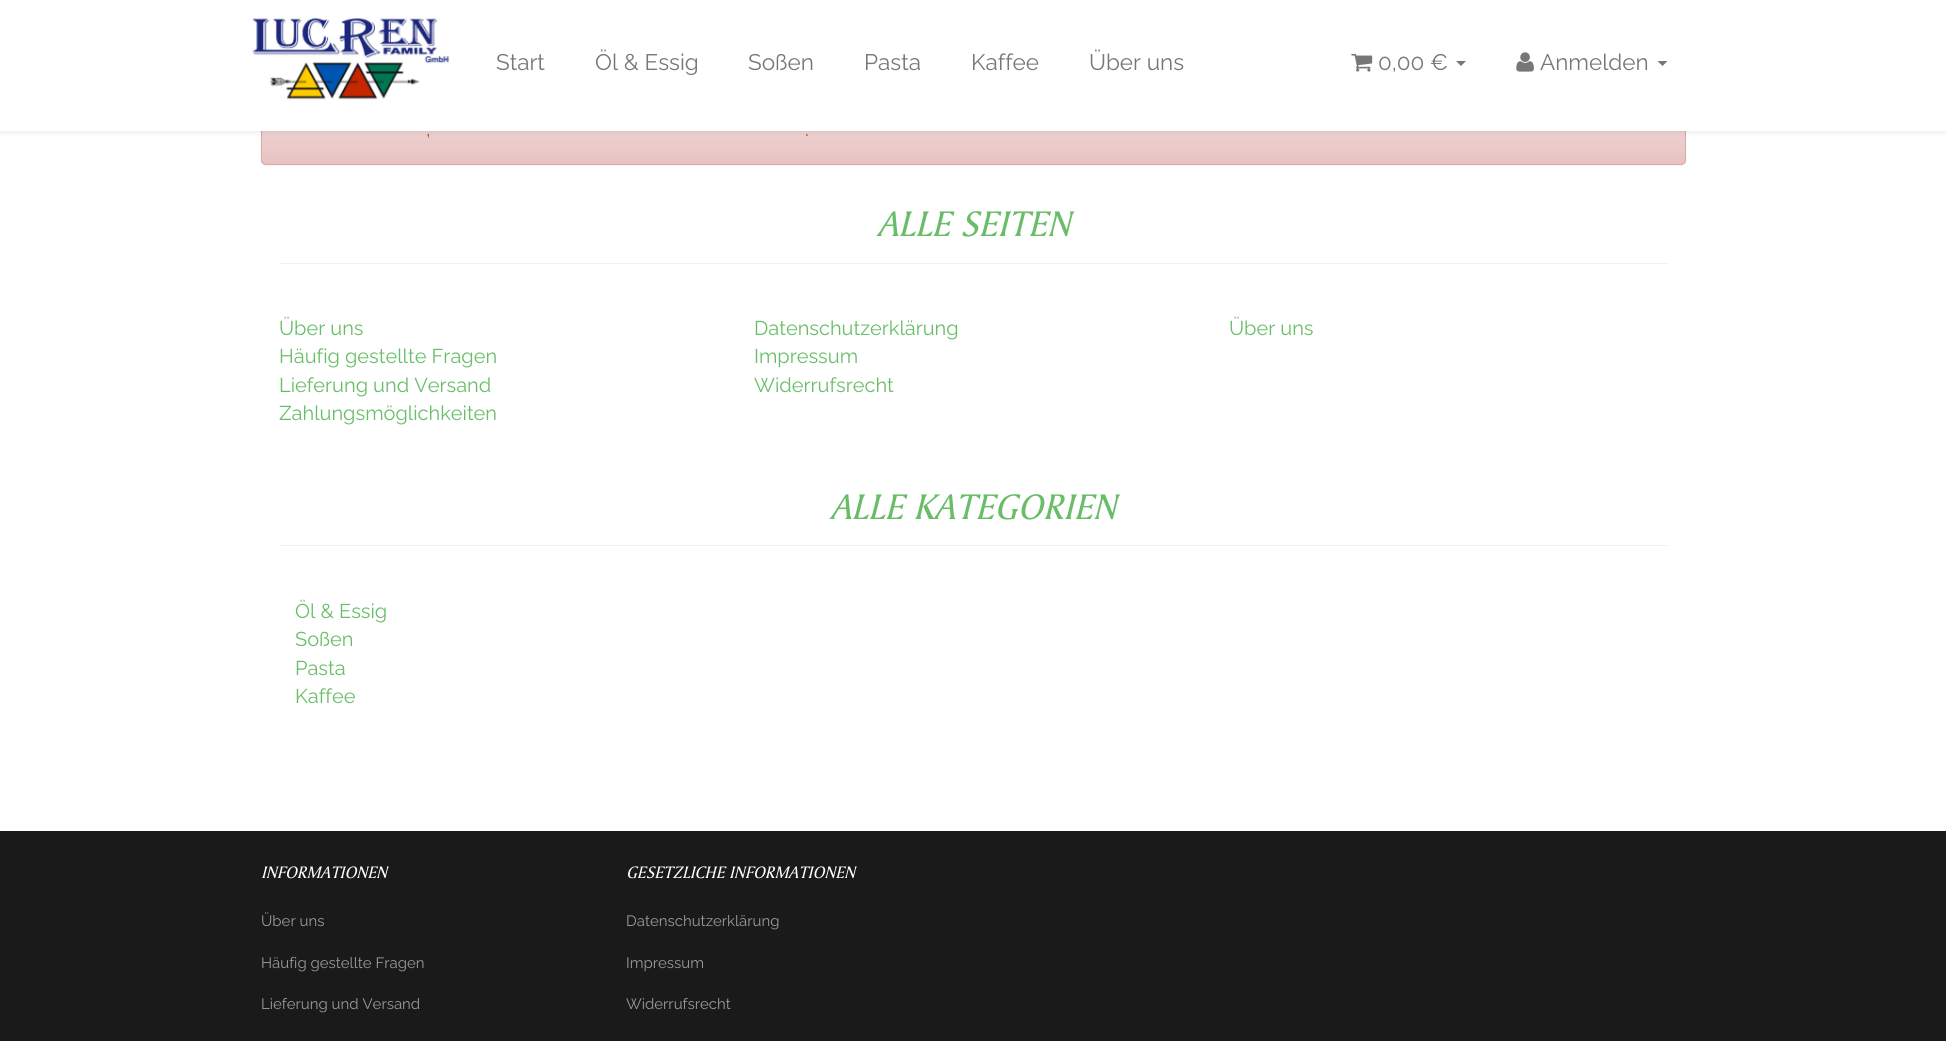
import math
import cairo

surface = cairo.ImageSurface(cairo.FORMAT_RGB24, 1946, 1041)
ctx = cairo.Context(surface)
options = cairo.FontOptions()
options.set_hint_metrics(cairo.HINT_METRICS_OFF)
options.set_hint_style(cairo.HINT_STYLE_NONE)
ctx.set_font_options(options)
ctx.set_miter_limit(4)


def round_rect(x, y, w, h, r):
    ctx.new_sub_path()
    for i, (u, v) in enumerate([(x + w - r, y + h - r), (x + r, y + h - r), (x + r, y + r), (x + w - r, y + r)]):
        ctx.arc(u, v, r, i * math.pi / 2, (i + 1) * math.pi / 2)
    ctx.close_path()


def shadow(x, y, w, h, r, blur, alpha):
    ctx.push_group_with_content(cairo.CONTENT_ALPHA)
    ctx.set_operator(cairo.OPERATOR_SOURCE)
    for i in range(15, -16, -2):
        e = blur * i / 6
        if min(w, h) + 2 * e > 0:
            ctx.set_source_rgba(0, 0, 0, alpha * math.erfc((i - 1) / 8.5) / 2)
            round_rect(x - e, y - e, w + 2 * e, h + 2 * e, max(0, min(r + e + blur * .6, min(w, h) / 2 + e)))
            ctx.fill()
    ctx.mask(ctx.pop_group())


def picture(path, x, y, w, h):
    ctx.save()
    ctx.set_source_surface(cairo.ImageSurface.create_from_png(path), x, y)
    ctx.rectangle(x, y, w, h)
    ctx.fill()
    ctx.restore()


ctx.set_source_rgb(1, 1, 1)
ctx.paint()
ctx.set_source_rgb(0, 0, 0)
shadow(261, 98, 1425, 68, 5, 1, 0.05)
ctx.save()
round_rect(261, 96, 1425, 69, 5)
ctx.clip()
gradient = cairo.LinearGradient(974, 97, 974, 164)
gradient.add_color_stop_rgba(0, 0.949, 0.871, 0.871, 1)
gradient.add_color_stop_rgba(1, 0.906, 0.765, 0.765, 1)
ctx.set_source(gradient)
ctx.rectangle(261, 131, 1425, 33)
ctx.fill()
ctx.restore()
round_rect(261.5, 96.5, 1424, 68, 4.5)
ctx.set_source_rgb(0.863, 0.655, 0.655)
ctx.set_line_width(1)
ctx.stroke()
ctx.set_source_rgb(0, 0, 0)
shadow(0, 1, 1946, 132, 0, 3, 0.07)
ctx.set_source_rgb(1, 1, 1)
ctx.rectangle(0, 0, 1946, 131)
ctx.fill()
picture("img1.png", 252, 17, 198, 83)
ctx.select_font_face("Raleway")
ctx.set_font_size(22.5)
ctx.set_source_rgb(0.467, 0.467, 0.467)
ctx.move_to(496, 70)
ctx.show_text("Start")
ctx.move_to(595, 70)
ctx.show_text("Öl & Essig")
ctx.move_to(748, 70)
ctx.show_text("Soßen")
ctx.move_to(864, 70)
ctx.show_text("Pasta")
ctx.move_to(971, 70)
ctx.show_text("Kaffee")
ctx.move_to(1089, 70)
ctx.show_text("Über uns")
picture("img2.png", 1351, 53, 22, 19)
ctx.move_to(1378, 70)
ctx.show_text("0,00 €")
ctx.new_path()
ctx.move_to(1456, 61)
ctx.line_to(1466, 61)
ctx.line_to(1461, 66)
ctx.close_path()
ctx.fill()
picture("img3.png", 1516, 52, 18, 20)
ctx.move_to(1540, 70)
ctx.show_text("Anmelden")
ctx.new_path()
ctx.move_to(1657.5, 61)
ctx.line_to(1667.5, 61)
ctx.line_to(1662.5, 66)
ctx.close_path()
ctx.fill()
ctx.set_font_size(20)
ctx.set_source_rgb(0.663, 0.267, 0.259)
ctx.move_to(426, 136)
ctx.show_text(",")
ctx.move_to(805, 136)
ctx.show_text(".")
ctx.set_source_rgb(0.945, 0.945, 0.945)
ctx.rectangle(280, 263, 1388, 1)
ctx.fill()
ctx.select_font_face("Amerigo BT", cairo.FONT_SLANT_ITALIC)
ctx.set_font_size(37.5)
ctx.set_source_rgb(0.412, 0.741, 0.412)
ctx.move_to(877, 236)
ctx.show_text("ALLE SEITEN")
ctx.select_font_face("Raleway")
ctx.set_font_size(20)
ctx.move_to(279, 335)
ctx.show_text("Über uns")
ctx.move_to(279, 363)
ctx.show_text("Häufig gestellte Fragen")
ctx.move_to(279, 392)
ctx.show_text("Lieferung und Versand")
ctx.move_to(279, 420)
ctx.show_text("Zahlungsmöglichkeiten")
ctx.move_to(754, 335)
ctx.show_text("Datenschutzerklärung")
ctx.move_to(754, 363)
ctx.show_text("Impressum")
ctx.move_to(754, 392)
ctx.show_text("Widerrufsrecht")
ctx.move_to(1229, 335)
ctx.show_text("Über uns")
ctx.set_source_rgb(0.945, 0.945, 0.945)
ctx.rectangle(280, 545, 1388, 1)
ctx.fill()
ctx.select_font_face("Amerigo BT", cairo.FONT_SLANT_ITALIC)
ctx.set_font_size(37.5)
ctx.set_source_rgb(0.412, 0.741, 0.412)
ctx.move_to(830, 519)
ctx.show_text("ALLE KATEGORIEN")
ctx.select_font_face("Raleway")
ctx.set_font_size(20)
ctx.move_to(295, 618)
ctx.show_text("Öl & Essig")
ctx.move_to(295, 646)
ctx.show_text("Soßen")
ctx.move_to(295, 675)
ctx.show_text("Pasta")
ctx.move_to(295, 703)
ctx.show_text("Kaffee")
ctx.set_source_rgb(0.102, 0.102, 0.102)
ctx.rectangle(0, 831, 1946, 210)
ctx.fill()
ctx.select_font_face("Amerigo BT", cairo.FONT_SLANT_ITALIC)
ctx.set_font_size(17.5)
ctx.set_source_rgb(1, 1, 1)
ctx.move_to(261, 878)
ctx.show_text("INFORMATIONEN")
ctx.select_font_face("Raleway")
ctx.set_font_size(15)
ctx.set_source_rgb(0.604, 0.604, 0.604)
ctx.move_to(261, 926)
ctx.show_text("Über uns")
ctx.move_to(261, 968)
ctx.show_text("Häufig gestellte Fragen")
ctx.move_to(261, 1009)
ctx.show_text("Lieferung und Versand")
ctx.select_font_face("Amerigo BT", cairo.FONT_SLANT_ITALIC)
ctx.set_font_size(17.5)
ctx.set_source_rgb(1, 1, 1)
ctx.move_to(626, 878)
ctx.show_text("GESETZLICHE INFORMATIONEN")
ctx.select_font_face("Raleway")
ctx.set_font_size(15)
ctx.set_source_rgb(0.604, 0.604, 0.604)
ctx.move_to(626, 926)
ctx.show_text("Datenschutzerklärung")
ctx.move_to(626, 968)
ctx.show_text("Impressum")
ctx.move_to(626, 1009)
ctx.show_text("Widerrufsrecht")
surface.write_to_png("page.png")
